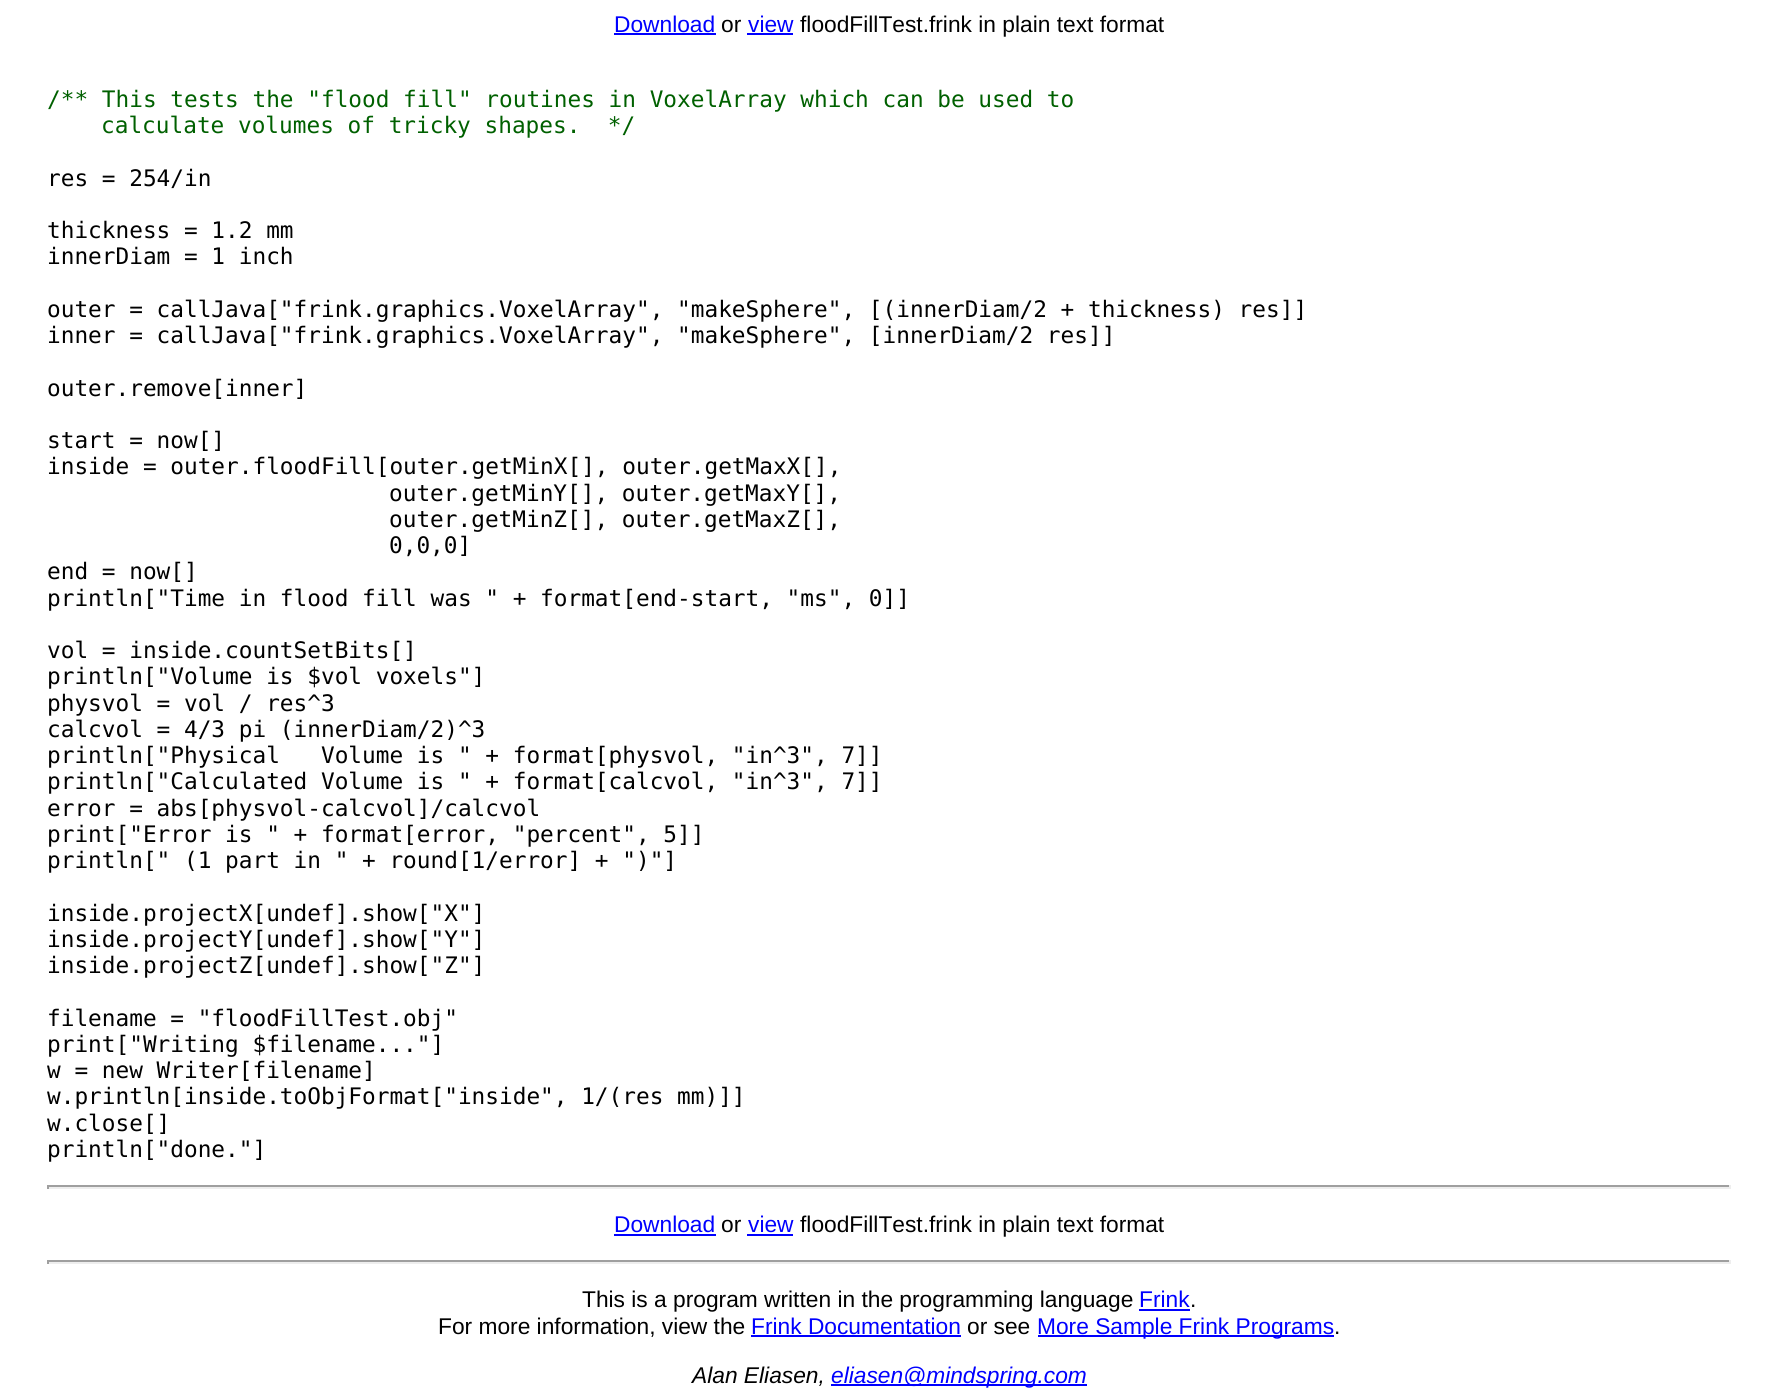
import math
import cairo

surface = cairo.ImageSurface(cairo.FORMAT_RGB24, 1777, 1400)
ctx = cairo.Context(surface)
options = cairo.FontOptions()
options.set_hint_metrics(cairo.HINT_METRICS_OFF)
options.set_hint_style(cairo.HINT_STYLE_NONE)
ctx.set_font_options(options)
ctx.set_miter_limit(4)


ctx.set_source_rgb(1, 1, 1)
ctx.paint()
ctx.select_font_face("Liberation Sans")
ctx.set_font_size(22.75)
ctx.set_source_rgb(0, 0, 1)
ctx.move_to(614, 32)
ctx.show_text("Download")
ctx.rectangle(614, 33, 102, 2)
ctx.fill()
ctx.set_source_rgb(0, 0, 0)
ctx.move_to(721, 32)
ctx.show_text("or")
ctx.set_source_rgb(0, 0, 1)
ctx.move_to(748, 32)
ctx.show_text("view")
ctx.rectangle(747, 33, 46, 2)
ctx.fill()
ctx.set_source_rgb(0, 0, 0)
ctx.move_to(800, 32)
ctx.show_text("floodFillTest.frink in plain text format")
ctx.select_font_face("DejaVu Sans Mono")
ctx.set_source_rgb(0, 0.376, 0)
ctx.move_to(47, 107)
ctx.show_text("/** This tests the \"flood fill\" routines in VoxelArray which can be used to")
ctx.move_to(101, 133)
ctx.show_text("calculate volumes of tricky shapes.  */")
ctx.set_source_rgb(0, 0, 0)
ctx.move_to(47, 186)
ctx.show_text("res = 254/in")
ctx.move_to(47, 238)
ctx.show_text("thickness = 1.2 mm")
ctx.move_to(47, 264)
ctx.show_text("innerDiam = 1 inch")
ctx.move_to(47, 317)
ctx.show_text("outer = callJava[\"frink.graphics.VoxelArray\", \"makeSphere\", [(innerDiam/2 + thickness) res]]")
ctx.move_to(47, 343)
ctx.show_text("inner = callJava[\"frink.graphics.VoxelArray\", \"makeSphere\", [innerDiam/2 res]]")
ctx.move_to(47, 396)
ctx.show_text("outer.remove[inner]")
ctx.move_to(47, 448)
ctx.show_text("start = now[]")
ctx.move_to(47, 474)
ctx.show_text("inside = outer.floodFill[outer.getMinX[], outer.getMaxX[],")
ctx.move_to(389, 501)
ctx.show_text("outer.getMinY[], outer.getMaxY[],")
ctx.move_to(389, 527)
ctx.show_text("outer.getMinZ[], outer.getMaxZ[],")
ctx.move_to(389, 553)
ctx.show_text("0,0,0]")
ctx.move_to(47, 579)
ctx.show_text("end = now[]")
ctx.move_to(47, 606)
ctx.show_text("println[\"Time in flood fill was \" + format[end-start, \"ms\", 0]]")
ctx.move_to(47, 658)
ctx.show_text("vol = inside.countSetBits[]")
ctx.move_to(47, 684)
ctx.show_text("println[\"Volume is $vol voxels\"]")
ctx.move_to(47, 711)
ctx.show_text("physvol = vol / res^3")
ctx.move_to(47, 737)
ctx.show_text("calcvol = 4/3 pi (innerDiam/2)^3")
ctx.move_to(47, 763)
ctx.show_text("println[\"Physical   Volume is \" + format[physvol, \"in^3\", 7]]")
ctx.move_to(47, 789)
ctx.show_text("println[\"Calculated Volume is \" + format[calcvol, \"in^3\", 7]]")
ctx.move_to(47, 816)
ctx.show_text("error = abs[physvol-calcvol]/calcvol")
ctx.move_to(47, 842)
ctx.show_text("print[\"Error is \" + format[error, \"percent\", 5]]")
ctx.move_to(47, 868)
ctx.show_text("println[\" (1 part in \" + round[1/error] + \")\"]")
ctx.move_to(47, 921)
ctx.show_text("inside.projectX[undef].show[\"X\"]")
ctx.move_to(47, 947)
ctx.show_text("inside.projectY[undef].show[\"Y\"]")
ctx.move_to(47, 973)
ctx.show_text("inside.projectZ[undef].show[\"Z\"]")
ctx.move_to(47, 1026)
ctx.show_text("filename = \"floodFillTest.obj\"")
ctx.move_to(47, 1052)
ctx.show_text("print[\"Writing $filename...\"]")
ctx.move_to(47, 1078)
ctx.show_text("w = new Writer[filename]")
ctx.move_to(47, 1104)
ctx.show_text("w.println[inside.toObjFormat[\"inside\", 1/(res mm)]]")
ctx.move_to(47, 1131)
ctx.show_text("w.close[]")
ctx.move_to(47, 1157)
ctx.show_text("println[\"done.\"]")
ctx.set_source_rgb(0.624, 0.624, 0.624)
ctx.rectangle(47, 1185, 1684, 2)
ctx.fill()
ctx.set_source_rgb(0.933, 0.933, 0.933)
ctx.rectangle(1729, 1185, 2, 4)
ctx.fill()
ctx.rectangle(47, 1187, 1684, 2)
ctx.fill()
ctx.set_source_rgb(0.624, 0.624, 0.624)
ctx.rectangle(47, 1185, 2, 4)
ctx.fill()
ctx.select_font_face("Liberation Sans")
ctx.set_source_rgb(0, 0, 1)
ctx.move_to(614, 1232)
ctx.show_text("Download")
ctx.rectangle(614, 1234, 102, 2)
ctx.fill()
ctx.set_source_rgb(0, 0, 0)
ctx.move_to(721, 1232)
ctx.show_text("or")
ctx.set_source_rgb(0, 0, 1)
ctx.move_to(748, 1232)
ctx.show_text("view")
ctx.rectangle(747, 1234, 46, 2)
ctx.fill()
ctx.set_source_rgb(0, 0, 0)
ctx.move_to(800, 1232)
ctx.show_text("floodFillTest.frink in plain text format")
ctx.set_source_rgb(0.624, 0.624, 0.624)
ctx.rectangle(47, 1260, 1684, 2)
ctx.fill()
ctx.set_source_rgb(0.933, 0.933, 0.933)
ctx.rectangle(1729, 1260, 2, 4)
ctx.fill()
ctx.rectangle(47, 1262, 1684, 2)
ctx.fill()
ctx.set_source_rgb(0.624, 0.624, 0.624)
ctx.rectangle(47, 1260, 2, 4)
ctx.fill()
ctx.set_source_rgb(0, 0, 0)
ctx.move_to(582, 1307)
ctx.show_text("This is a program written in the programming language")
ctx.set_source_rgb(0, 0, 1)
ctx.move_to(1139, 1307)
ctx.show_text("Frink")
ctx.rectangle(1139, 1309, 51, 2)
ctx.fill()
ctx.set_source_rgb(0, 0, 0)
ctx.move_to(1190, 1307)
ctx.show_text(".")
ctx.move_to(438, 1334)
ctx.show_text("For more information, view the")
ctx.set_source_rgb(0, 0, 1)
ctx.move_to(751, 1334)
ctx.show_text("Frink Documentation")
ctx.rectangle(751, 1335, 210, 2)
ctx.fill()
ctx.set_source_rgb(0, 0, 0)
ctx.move_to(967, 1334)
ctx.show_text("or see")
ctx.set_source_rgb(0, 0, 1)
ctx.rectangle(1038, 1335, 296, 2)
ctx.fill()
ctx.move_to(1037, 1334)
ctx.show_text("More Sample Frink Programs")
ctx.set_source_rgb(0, 0, 0)
ctx.move_to(1334, 1334)
ctx.show_text(".")
ctx.select_font_face("Liberation Sans", cairo.FONT_SLANT_ITALIC)
ctx.move_to(692, 1383)
ctx.show_text("Alan Eliasen,")
ctx.set_source_rgb(0, 0, 1)
ctx.rectangle(831, 1384, 256, 2)
ctx.fill()
ctx.move_to(831, 1383)
ctx.show_text("eliasen@mindspring.com")
surface.write_to_png("page.png")
